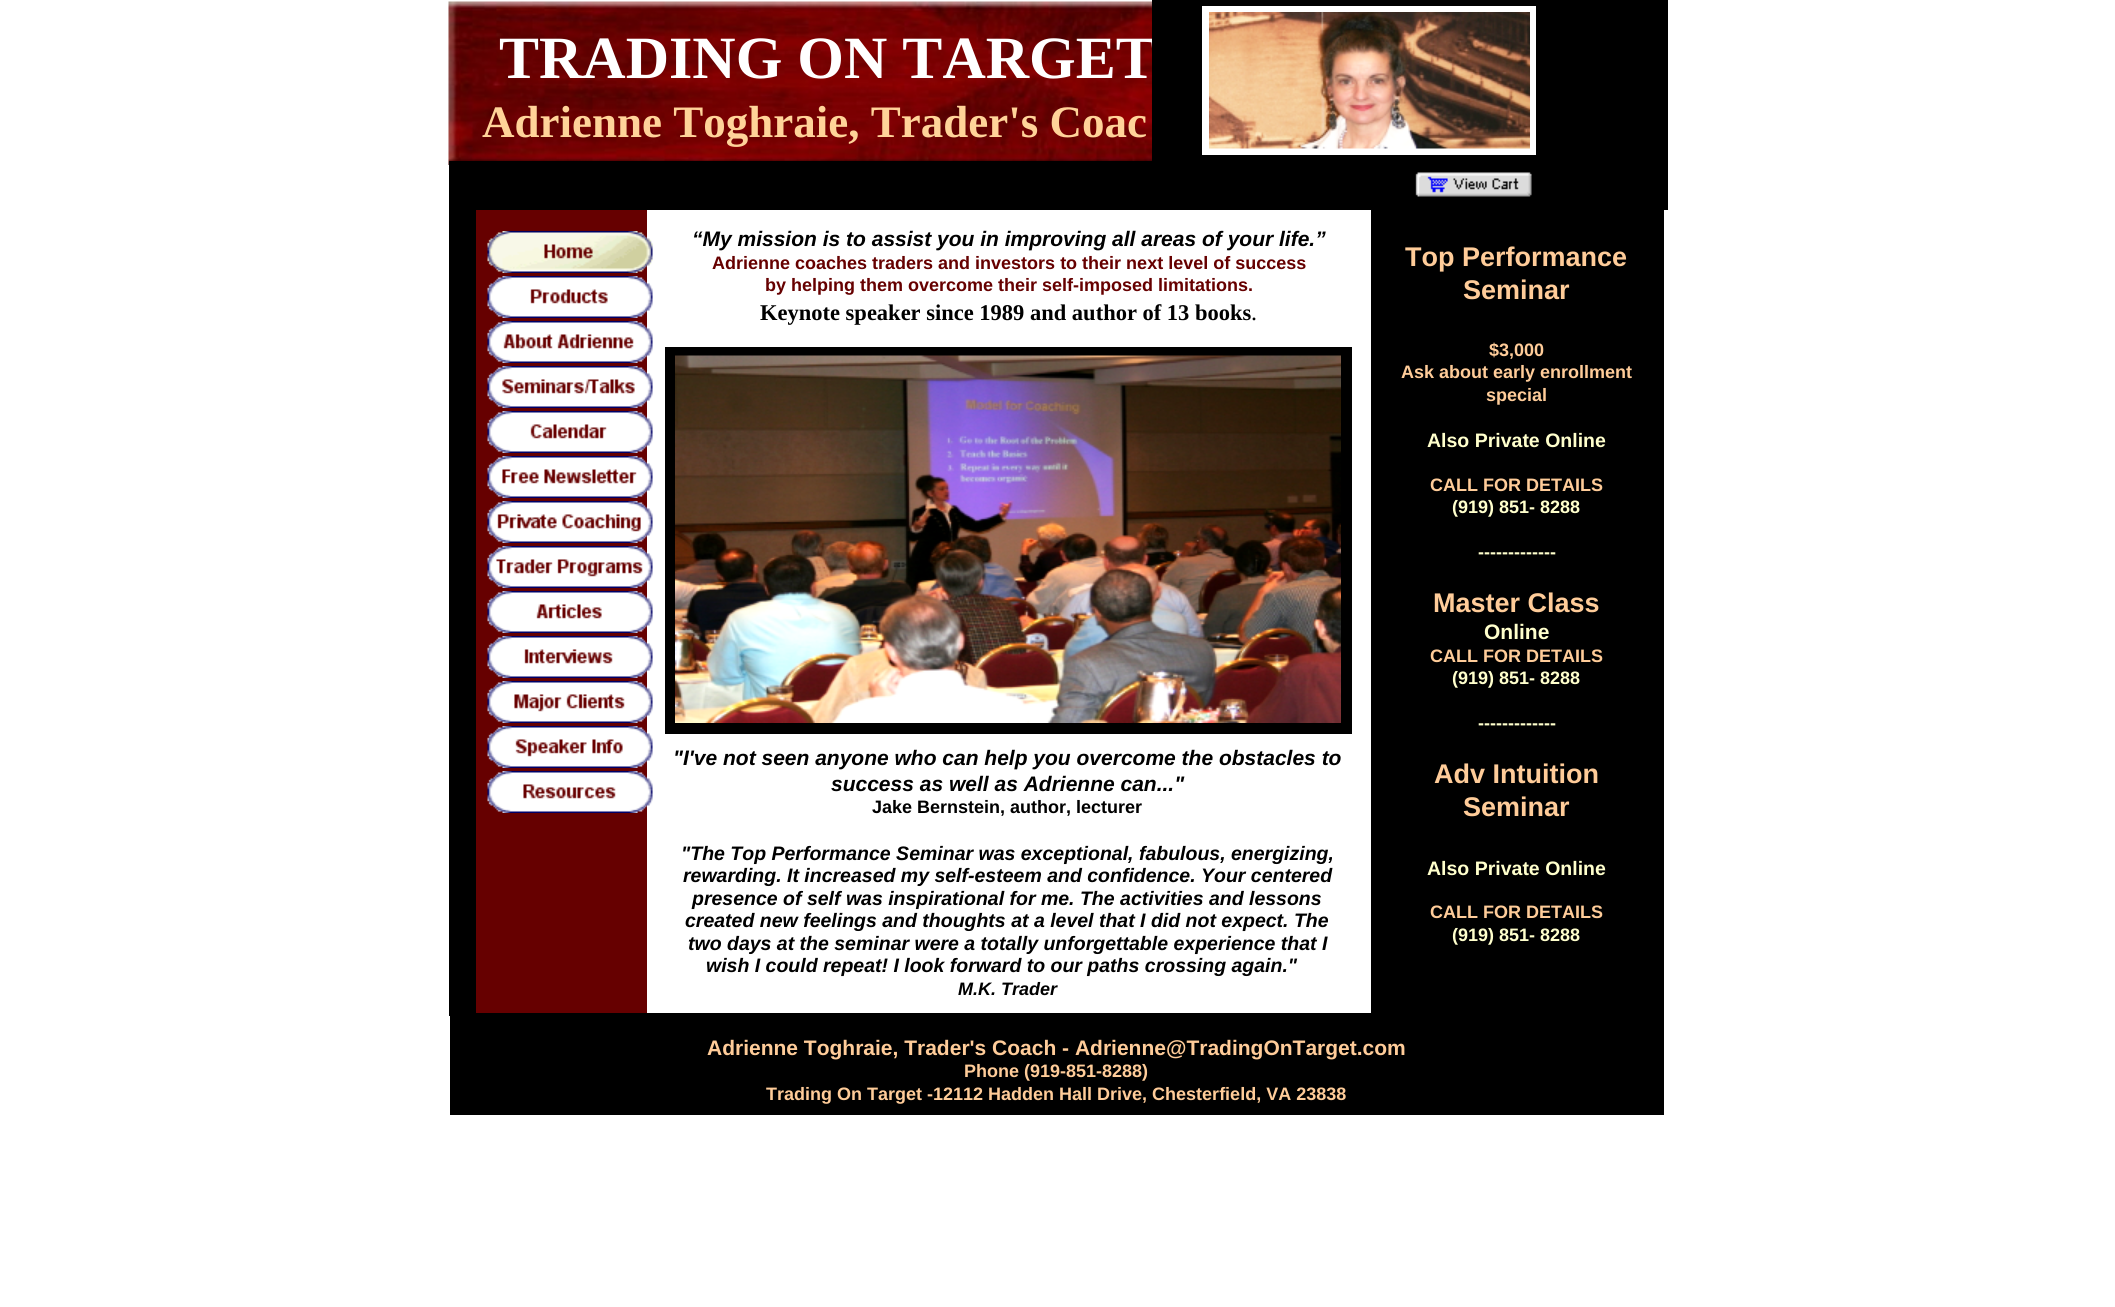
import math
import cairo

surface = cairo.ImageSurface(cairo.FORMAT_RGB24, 2115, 1307)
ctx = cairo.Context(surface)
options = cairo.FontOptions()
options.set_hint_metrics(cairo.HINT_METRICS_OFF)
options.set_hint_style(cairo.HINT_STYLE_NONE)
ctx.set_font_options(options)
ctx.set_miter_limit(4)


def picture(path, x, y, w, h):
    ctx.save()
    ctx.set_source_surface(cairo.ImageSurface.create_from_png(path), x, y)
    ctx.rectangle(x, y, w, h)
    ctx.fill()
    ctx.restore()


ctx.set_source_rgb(1, 1, 1)
ctx.paint()
picture("img1.png", 448, 1, 704, 164)
ctx.select_font_face("Liberation Serif", cairo.FONT_SLANT_NORMAL, cairo.FONT_WEIGHT_BOLD)
ctx.set_font_size(60)
ctx.set_source_rgb(1, 1, 1)
ctx.move_to(499, 78)
ctx.show_text("TRADING ON TARGET")
ctx.set_source_rgb(0, 0, 0)
ctx.rectangle(1152, 0, 516, 161)
ctx.fill()
ctx.set_source_rgb(1, 1, 1)
ctx.rectangle(1202, 6, 334, 149)
ctx.fill()
ctx.set_font_size(45)
ctx.set_source_rgb(1, 0.827, 0.6)
ctx.move_to(482, 137)
ctx.show_text("Adrienne Toghraie, Trader's Coac")
picture("img2.png", 1209, 12, 321, 137)
ctx.set_source_rgb(0, 0, 0)
ctx.rectangle(449, 161, 1219, 49)
ctx.fill()
picture("img3.png", 1415, 172, 117, 25)
ctx.rectangle(450, 1013, 1214, 102)
ctx.fill()
ctx.rectangle(449, 210, 27, 806)
ctx.fill()
ctx.set_source_rgb(0.4, 0, 0)
ctx.rectangle(476, 210, 171, 803)
ctx.fill()
ctx.select_font_face("Liberation Sans", cairo.FONT_SLANT_ITALIC, cairo.FONT_WEIGHT_BOLD)
ctx.set_font_size(21)
ctx.set_source_rgb(0, 0, 0)
ctx.move_to(692, 246)
ctx.show_text("“My mission is to assist you in improving all areas of your life.”")
ctx.select_font_face("Liberation Sans", cairo.FONT_SLANT_NORMAL, cairo.FONT_WEIGHT_BOLD)
ctx.set_font_size(18)
ctx.set_source_rgb(0.4, 0, 0)
ctx.move_to(712, 269)
ctx.show_text("Adrienne coaches traders and investors to their next level of success")
ctx.move_to(765, 291)
ctx.show_text("by helping them overcome their self-imposed limitations.")
ctx.select_font_face("Liberation Serif", cairo.FONT_SLANT_NORMAL, cairo.FONT_WEIGHT_BOLD)
ctx.set_font_size(22.5)
ctx.set_source_rgb(0, 0, 0)
ctx.move_to(760, 320)
ctx.show_text("Keynote speaker since 1989 and author of 13 books")
ctx.select_font_face("Liberation Serif")
ctx.set_font_size(24)
ctx.move_to(1251, 320)
ctx.show_text(".")
picture("img4.png", 487, 231, 166, 42)
picture("img5.png", 487, 276, 166, 42)
picture("img6.png", 487, 321, 166, 42)
picture("img7.png", 487, 366, 166, 42)
picture("img8.png", 487, 411, 166, 42)
picture("img9.png", 487, 456, 166, 42)
picture("img10.png", 487, 501, 166, 42)
picture("img11.png", 487, 546, 166, 42)
picture("img12.png", 487, 591, 166, 42)
picture("img13.png", 487, 636, 166, 42)
picture("img14.png", 487, 681, 166, 42)
picture("img15.png", 487, 726, 166, 42)
picture("img16.png", 487, 771, 166, 42)
ctx.rectangle(665, 347, 687, 387)
ctx.fill()
ctx.rectangle(1371, 210, 293, 803)
ctx.fill()
ctx.select_font_face("Liberation Sans", cairo.FONT_SLANT_NORMAL, cairo.FONT_WEIGHT_BOLD)
ctx.set_font_size(27)
ctx.set_source_rgb(1, 0.8, 0.6)
ctx.move_to(1405, 266)
ctx.show_text("Top Performance")
ctx.move_to(1463, 299)
ctx.show_text("Seminar")
ctx.set_font_size(18)
ctx.move_to(1489, 356)
ctx.show_text("$3,000")
ctx.move_to(1401, 378)
ctx.show_text("Ask about early enrollment")
ctx.move_to(1486, 401)
ctx.show_text("special")
ctx.set_font_size(19.5)
ctx.set_source_rgb(1, 1, 0.8)
ctx.move_to(1427, 447)
ctx.show_text("Also Private Online")
ctx.set_font_size(18)
ctx.set_source_rgb(1, 0.8, 0.6)
ctx.move_to(1430, 491)
ctx.show_text("CALL FOR DETAILS")
ctx.set_source_rgb(1, 1, 0.8)
ctx.move_to(1452, 513)
ctx.show_text("(919) 851- 8288")
ctx.move_to(1478, 558)
ctx.show_text("-------------")
ctx.set_font_size(27)
ctx.set_source_rgb(1, 0.8, 0.6)
ctx.move_to(1433, 612)
ctx.show_text("Master Class")
ctx.set_font_size(21)
ctx.set_source_rgb(1, 1, 0.8)
ctx.move_to(1484, 639)
ctx.show_text("Online")
ctx.set_font_size(18)
ctx.set_source_rgb(1, 0.8, 0.6)
ctx.move_to(1430, 662)
ctx.show_text("CALL FOR DETAILS")
ctx.set_source_rgb(1, 1, 0.8)
ctx.move_to(1452, 684)
ctx.show_text("(919) 851- 8288")
ctx.move_to(1478, 729)
ctx.show_text("-------------")
ctx.set_font_size(27)
ctx.set_source_rgb(1, 0.8, 0.6)
ctx.move_to(1434, 783)
ctx.show_text("Adv Intuition")
ctx.move_to(1463, 816)
ctx.show_text("Seminar")
ctx.set_font_size(19.5)
ctx.set_source_rgb(1, 1, 0.8)
ctx.move_to(1427, 875)
ctx.show_text("Also Private Online")
ctx.set_font_size(18)
ctx.set_source_rgb(1, 0.8, 0.6)
ctx.move_to(1430, 918)
ctx.show_text("CALL FOR DETAILS")
ctx.set_source_rgb(1, 1, 0.8)
ctx.move_to(1452, 941)
ctx.show_text("(919) 851- 8288")
picture("img17.png", 675, 355, 666, 368)
ctx.select_font_face("Liberation Sans", cairo.FONT_SLANT_ITALIC, cairo.FONT_WEIGHT_BOLD)
ctx.set_font_size(21)
ctx.set_source_rgb(0, 0, 0)
ctx.move_to(673, 765)
ctx.show_text("\"I've not seen anyone who can help you overcome the obstacles to")
ctx.move_to(831, 791)
ctx.show_text("success as well as Adrienne can...\"")
ctx.select_font_face("Liberation Sans", cairo.FONT_SLANT_NORMAL, cairo.FONT_WEIGHT_BOLD)
ctx.set_font_size(18)
ctx.move_to(872, 813)
ctx.show_text("Jake Bernstein, author, lecturer")
ctx.select_font_face("Liberation Sans", cairo.FONT_SLANT_ITALIC, cairo.FONT_WEIGHT_BOLD)
ctx.set_font_size(19.5)
ctx.move_to(681, 860)
ctx.show_text("\"The Top Performance Seminar was exceptional, fabulous, energizing,")
ctx.move_to(683, 882)
ctx.show_text("rewarding. It increased my self-esteem and confidence. Your centered")
ctx.move_to(692, 905)
ctx.show_text("presence of self was inspirational for me. The activities and lessons")
ctx.move_to(685, 927)
ctx.show_text("created new feelings and thoughts at a level that I did not expect. The")
ctx.move_to(688, 950)
ctx.show_text("two days at the seminar were a totally unforgettable experience that I")
ctx.move_to(706, 972)
ctx.show_text("wish I could repeat! I look forward to our paths crossing again.\"")
ctx.set_font_size(18)
ctx.move_to(958, 995)
ctx.show_text("M.K. Trader")
ctx.select_font_face("Liberation Sans", cairo.FONT_SLANT_NORMAL, cairo.FONT_WEIGHT_BOLD)
ctx.set_font_size(21)
ctx.set_source_rgb(1, 0.8, 0.6)
ctx.move_to(707, 1055)
ctx.show_text("Adrienne Toghraie, Trader's Coach - Adrienne@TradingOnTarget.com")
ctx.set_font_size(18)
ctx.move_to(964, 1077)
ctx.show_text("Phone (919-851-8288)")
ctx.move_to(766, 1100)
ctx.show_text("Trading On Target -12112 Hadden Hall Drive, Chesterfield, VA 23838")
surface.write_to_png("page.png")
